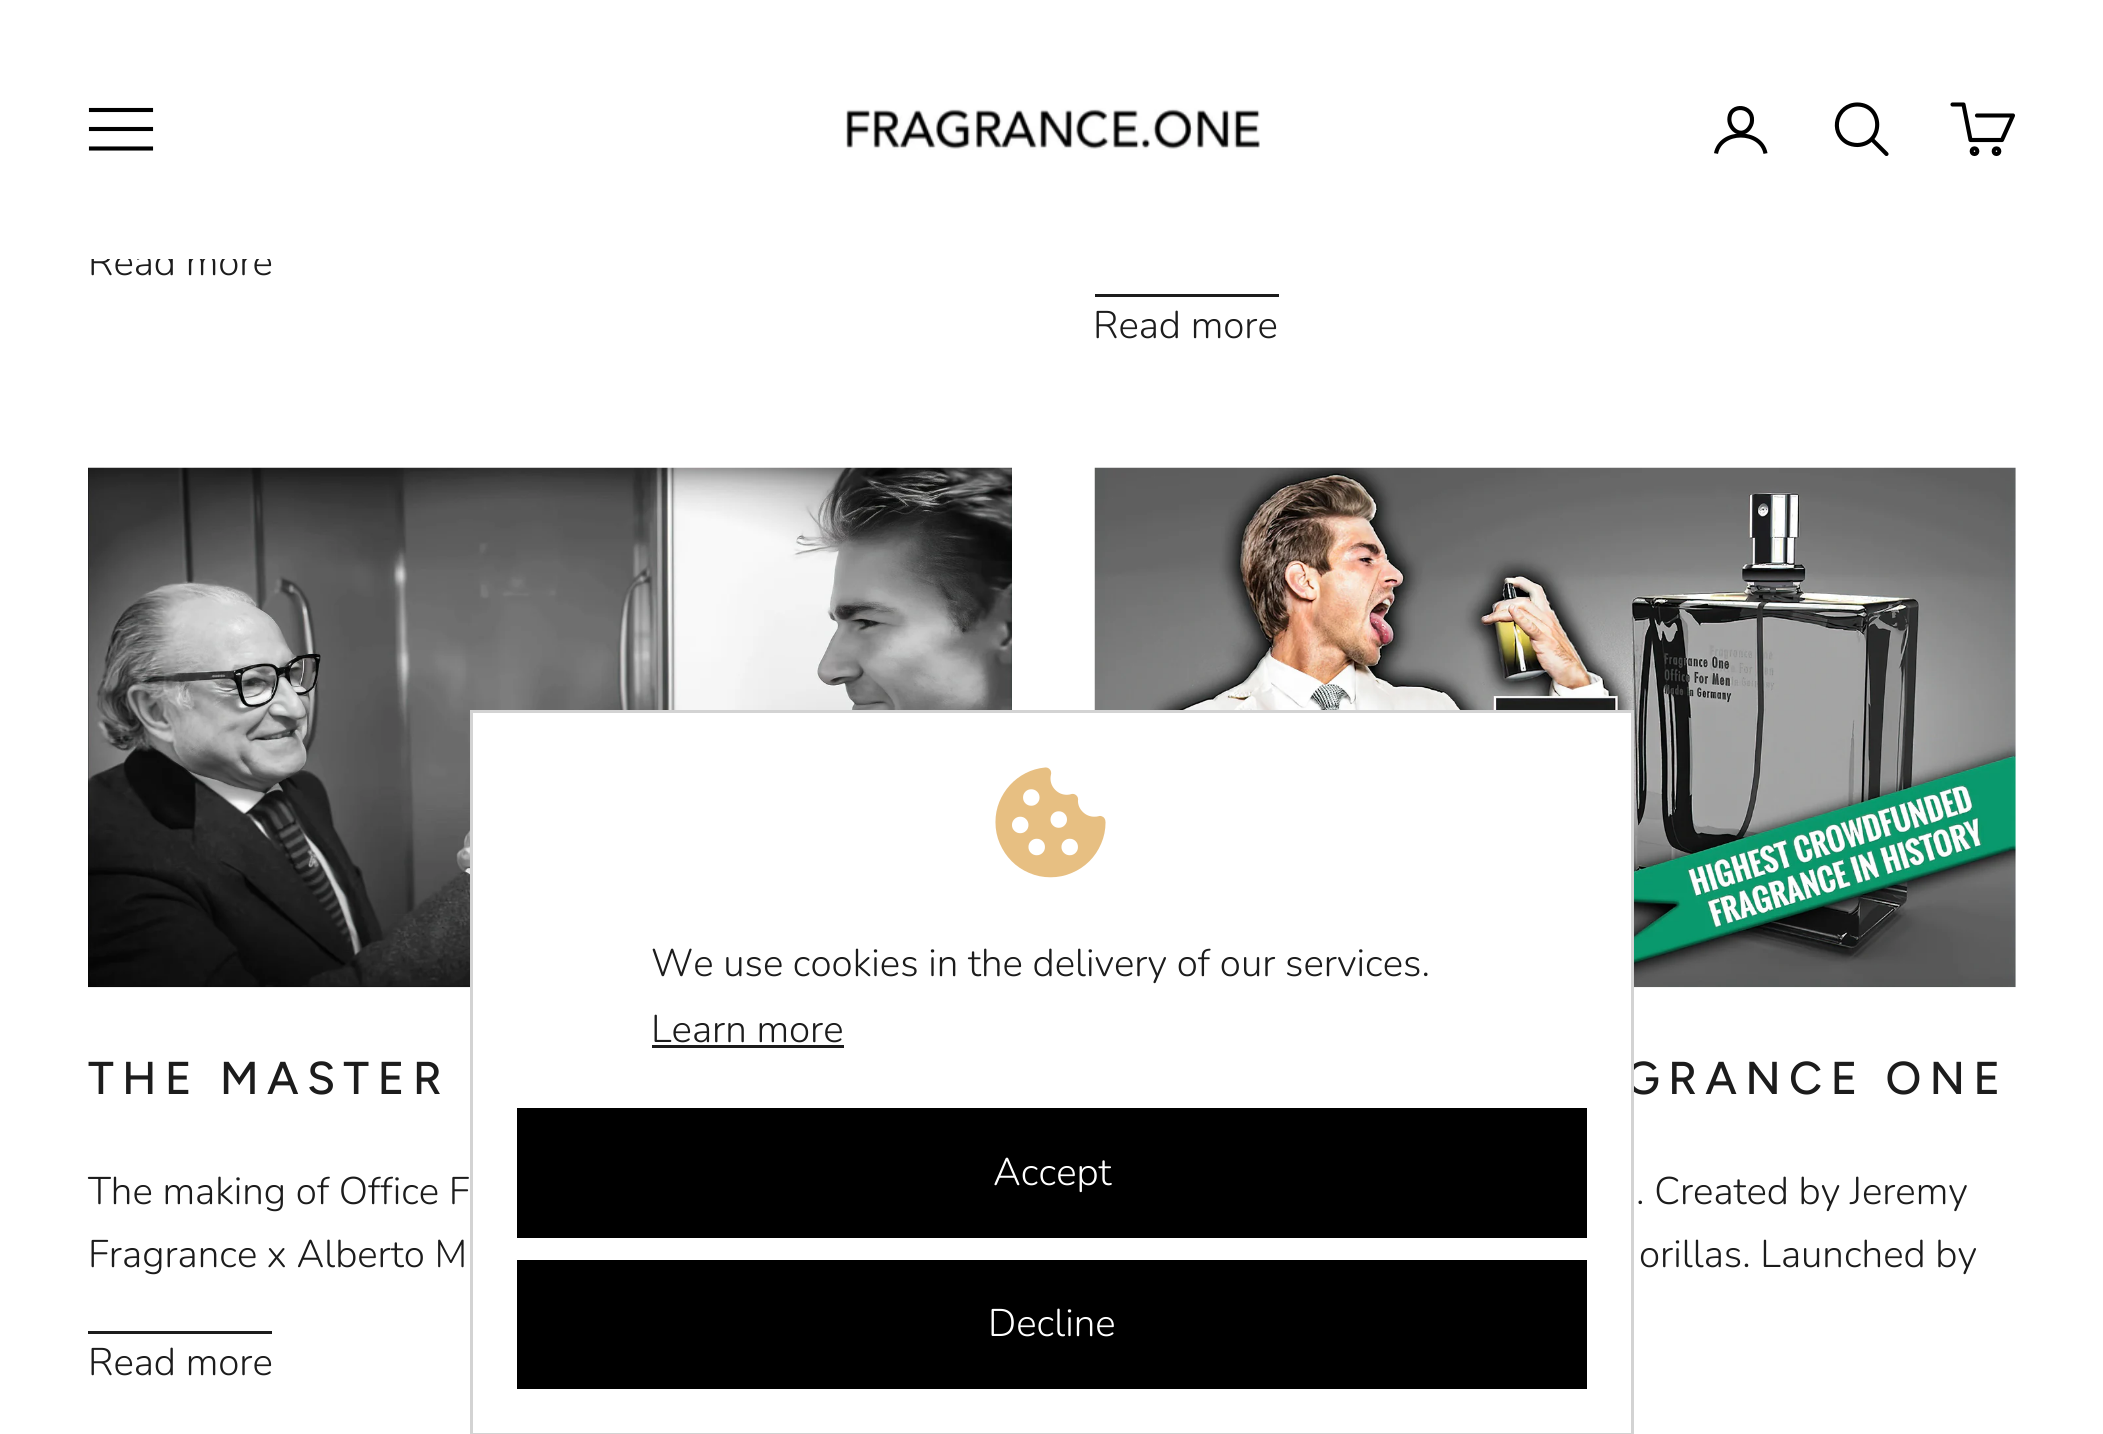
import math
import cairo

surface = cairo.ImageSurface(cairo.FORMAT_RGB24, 2103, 1434)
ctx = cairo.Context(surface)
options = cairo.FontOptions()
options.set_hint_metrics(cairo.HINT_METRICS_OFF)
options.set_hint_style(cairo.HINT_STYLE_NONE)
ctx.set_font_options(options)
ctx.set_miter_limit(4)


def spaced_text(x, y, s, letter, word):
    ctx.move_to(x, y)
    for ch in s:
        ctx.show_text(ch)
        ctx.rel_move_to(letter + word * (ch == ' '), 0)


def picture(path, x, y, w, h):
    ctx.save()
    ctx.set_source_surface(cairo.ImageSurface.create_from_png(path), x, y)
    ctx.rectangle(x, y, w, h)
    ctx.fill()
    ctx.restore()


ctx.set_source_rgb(1, 1, 1)
ctx.paint()
ctx.select_font_face("Nunito Light")
ctx.set_font_size(38.5)
ctx.set_source_rgb(0.11, 0.11, 0.11)
ctx.move_to(88, 275)
ctx.show_text("Read more")
ctx.set_source_rgb(1, 1, 1)
ctx.rectangle(91, 247, 179, 12)
ctx.fill()
ctx.new_path()
ctx.move_to(91, 148.5)
ctx.line_to(151, 148.5)
ctx.move_to(91, 129)
ctx.line_to(151, 129)
ctx.move_to(91, 110)
ctx.line_to(151, 110)
ctx.set_source_rgb(0, 0, 0)
ctx.set_line_width(4.1)
ctx.set_line_cap(cairo.LINE_CAP_SQUARE)
ctx.stroke()
picture("img1.png", 846, 108, 414, 42)
ctx.new_path()
ctx.move_to(1752, 120.5)
ctx.curve_to(1752, 123.5, 1750.5, 126.5, 1748.5, 129)
ctx.curve_to(1740, 138.5, 1728, 128, 1729.5, 117.5)
ctx.curve_to(1731, 103.5, 1753, 105.5, 1752, 120.5)
ctx.close_path()
ctx.set_line_cap(cairo.LINE_CAP_ROUND)
ctx.set_line_join(cairo.LINE_JOIN_ROUND)
ctx.stroke()
ctx.new_path()
ctx.move_to(1716, 153.5)
ctx.curve_to(1720.5, 129.5, 1761, 129.5, 1765.5, 153.5)
ctx.set_line_cap(cairo.LINE_CAP_BUTT)
ctx.set_line_join(cairo.LINE_JOIN_MITER)
ctx.stroke()
ctx.new_path()
ctx.move_to(1857.5, 104.5)
ctx.curve_to(1836.5, 104.5, 1829, 132, 1847, 142.5)
ctx.curve_to(1850, 144, 1853.5, 145, 1857.5, 145)
ctx.curve_to(1884, 144, 1883.5, 105, 1857.5, 104.5)
ctx.close_path()
ctx.stroke()
ctx.new_path()
ctx.move_to(1872.5, 140)
ctx.line_to(1886.5, 154)
ctx.set_line_cap(cairo.LINE_CAP_ROUND)
ctx.stroke()
ctx.new_path()
ctx.move_to(1977, 115.5)
ctx.line_to(2013, 115.5)
ctx.line_to(2002, 140)
ctx.line_to(1970.5, 140)
ctx.line_to(1963.5, 104.5)
ctx.line_to(1952.5, 104.5)
ctx.set_line_join(cairo.LINE_JOIN_ROUND)
ctx.stroke()
ctx.arc(1974.5, 151.2, 2.8, 0, 2 * math.pi)
ctx.set_line_cap(cairo.LINE_CAP_BUTT)
ctx.set_line_join(cairo.LINE_JOIN_MITER)
ctx.stroke()
ctx.arc(1996.5, 151.2, 2.8, 0, 2 * math.pi)
ctx.stroke()
ctx.set_source_rgb(0.11, 0.11, 0.11)
ctx.rectangle(1095, 294, 184, 3)
ctx.fill()
ctx.move_to(1093, 338)
ctx.show_text("Read more")
picture("img2.png", 88, 467, 924, 521)
ctx.select_font_face("Figtree Medium")
ctx.set_font_size(46)
spaced_text(88, 1094, "THE MASTER", 8.25, 0)
ctx.select_font_face("Nunito Light")
ctx.set_font_size(38.5)
ctx.move_to(88, 1204)
ctx.show_text("The making of Office F")
ctx.move_to(88, 1267)
ctx.show_text("Fragrance x Alberto M")
ctx.rectangle(88, 1331, 184, 3)
ctx.fill()
ctx.move_to(88, 1375)
ctx.show_text("Read more")
picture("img3.png", 1094, 467, 922, 521)
ctx.select_font_face("Figtree Medium")
ctx.set_font_size(46)
spaced_text(1625, 1094, "GRANCE ONE", 8.25, 0)
ctx.select_font_face("Nunito Light")
ctx.set_font_size(38.5)
ctx.move_to(1636, 1204)
ctx.show_text(". Created by Jeremy")
ctx.move_to(1639, 1267)
ctx.show_text("orillas. Launched by")
ctx.set_source_rgb(1, 1, 1)
ctx.rectangle(473, 713, 1158, 377)
ctx.fill()
ctx.rectangle(471.5, 711.5, 1161, 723)
ctx.set_source_rgb(0.827, 0.827, 0.827)
ctx.set_line_width(3)
ctx.stroke()
picture("img4.png", 995, 767, 111, 111)
ctx.set_source_rgb(0.11, 0.11, 0.11)
ctx.move_to(651, 976)
ctx.show_text("We use cookies in the delivery of our services.")
ctx.move_to(651, 1042)
ctx.show_text("Learn more")
ctx.rectangle(652, 1045, 192, 3)
ctx.fill()
ctx.set_source_rgb(0, 0, 0)
ctx.rectangle(517, 1108, 1070, 130)
ctx.fill()
ctx.set_source_rgb(1, 1, 1)
ctx.move_to(993, 1185)
ctx.show_text("Accept")
ctx.set_source_rgb(0, 0, 0)
ctx.rectangle(517, 1260, 1070, 129)
ctx.fill()
ctx.set_source_rgb(1, 1, 1)
ctx.move_to(988, 1336)
ctx.show_text("Decline")
surface.write_to_png("page.png")
